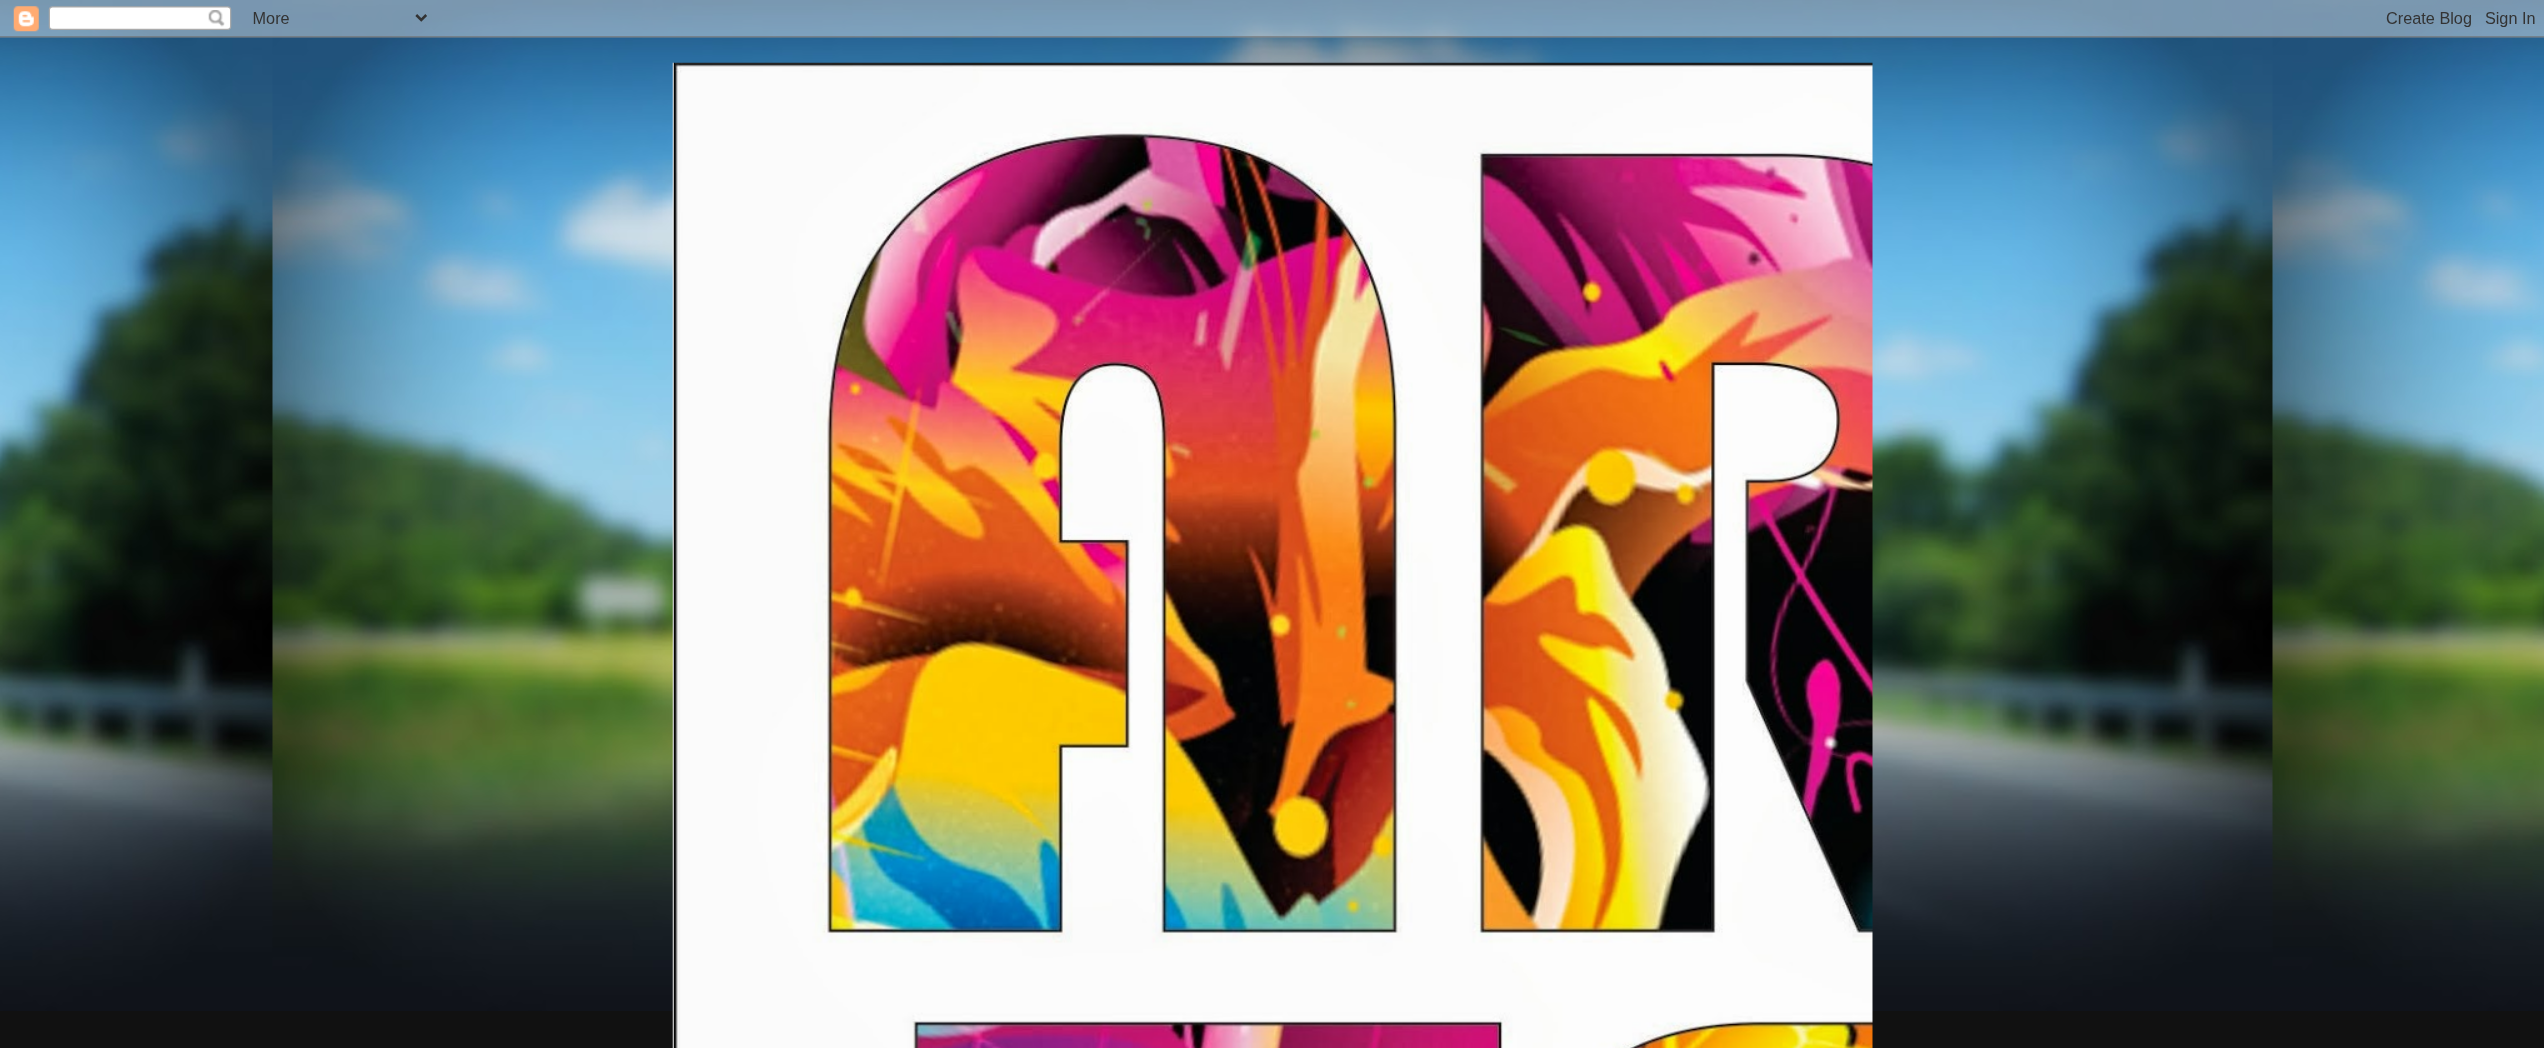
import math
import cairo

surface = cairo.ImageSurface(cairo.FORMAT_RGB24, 2544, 1048)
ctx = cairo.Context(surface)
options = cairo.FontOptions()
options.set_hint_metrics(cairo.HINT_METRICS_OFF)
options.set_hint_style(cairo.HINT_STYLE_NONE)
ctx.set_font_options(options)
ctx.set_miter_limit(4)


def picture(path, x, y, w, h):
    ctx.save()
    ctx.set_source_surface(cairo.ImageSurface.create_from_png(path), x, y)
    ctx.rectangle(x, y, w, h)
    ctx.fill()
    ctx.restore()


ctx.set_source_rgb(0.067, 0.067, 0.067)
ctx.paint()
picture("img1.png", 0, 0, 2544, 1011)
picture("img2.png", 0, 0, 2544, 38)
picture("img3.png", 672, 62, 1201, 986)
surface.write_to_png("page.png")
